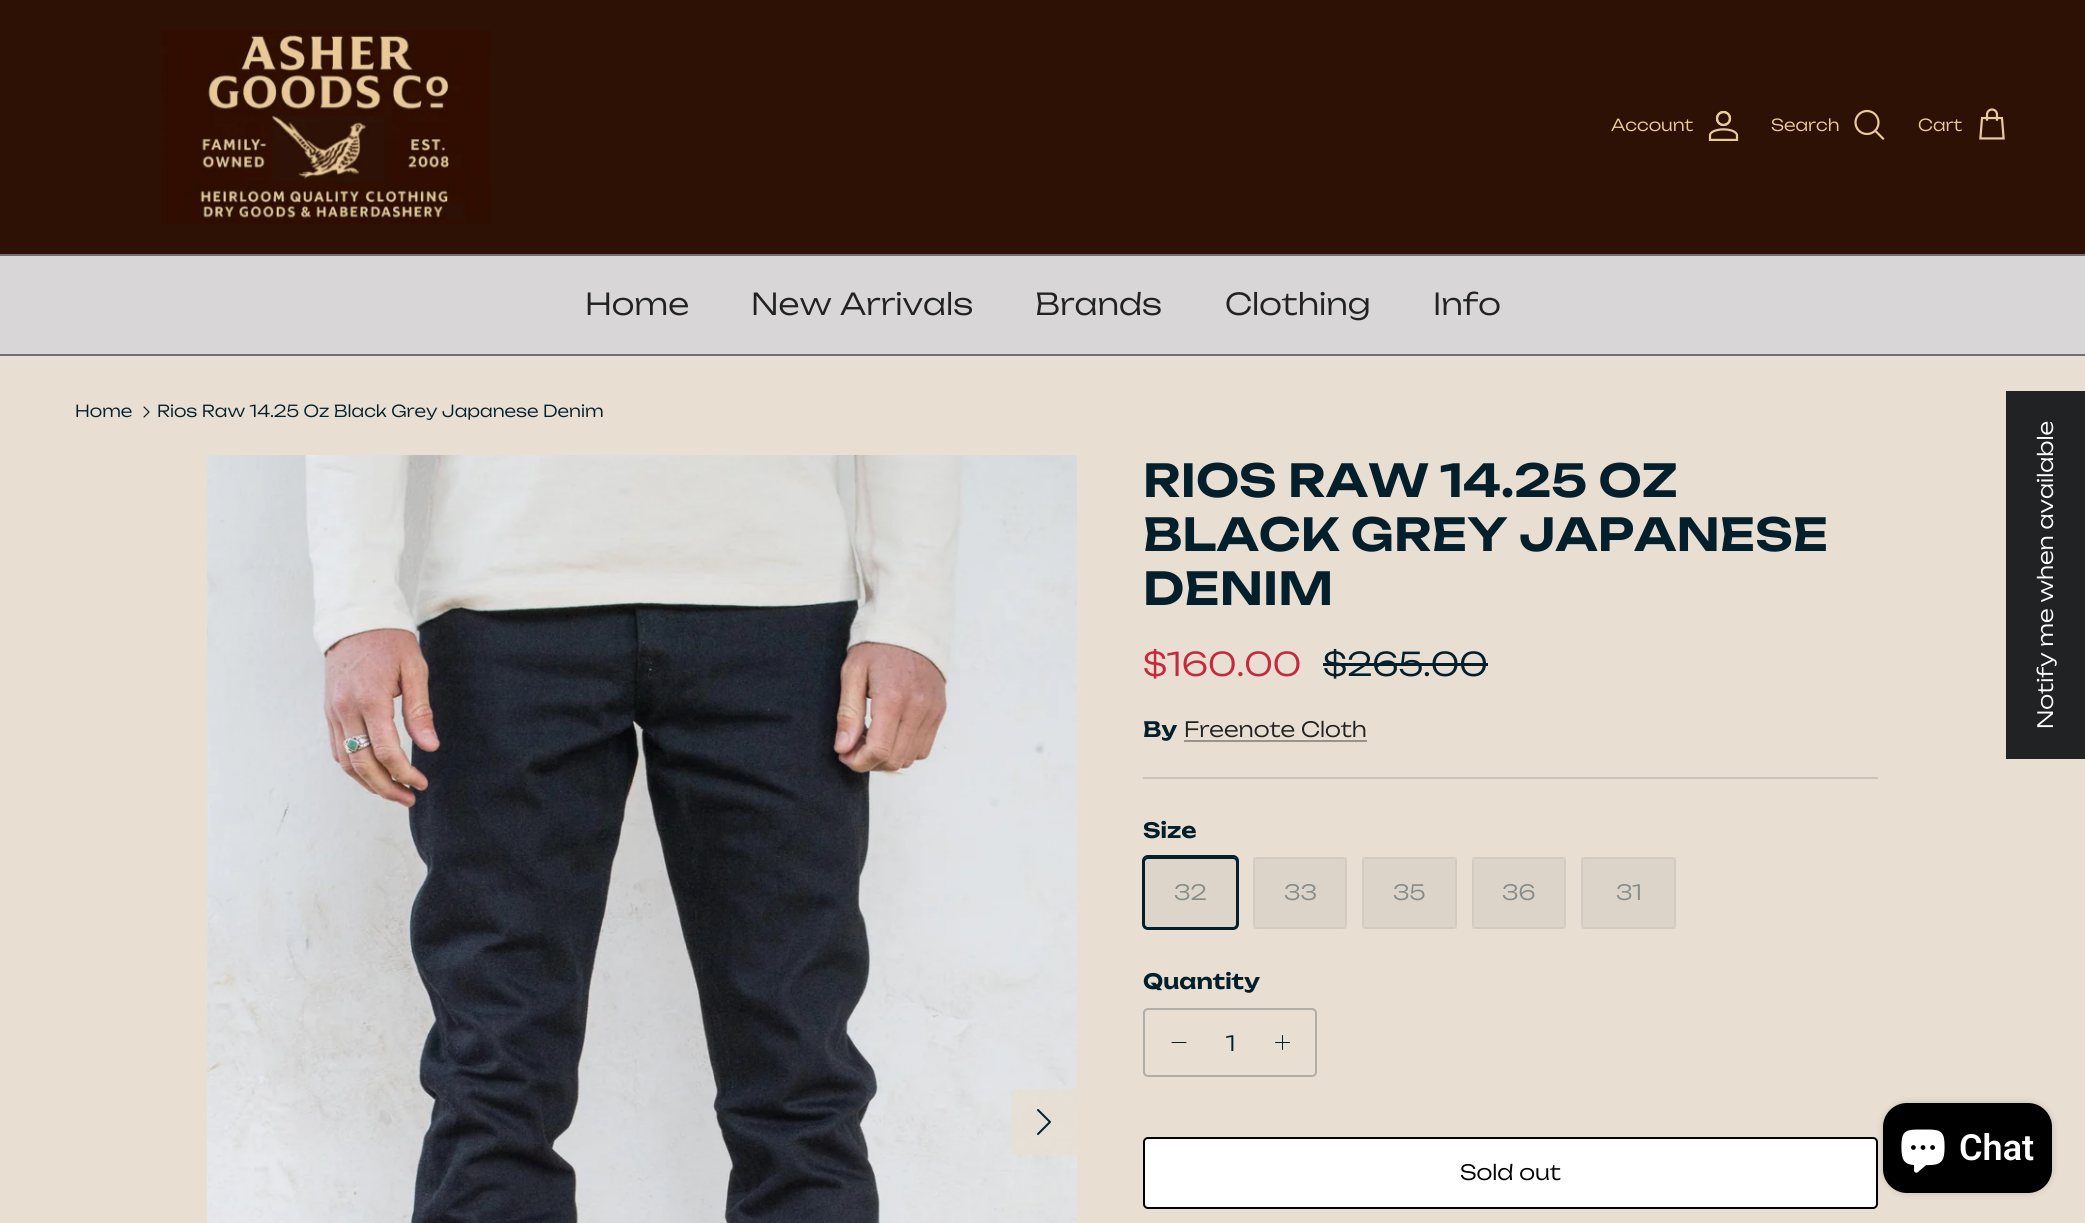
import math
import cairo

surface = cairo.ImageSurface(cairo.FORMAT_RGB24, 2085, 1223)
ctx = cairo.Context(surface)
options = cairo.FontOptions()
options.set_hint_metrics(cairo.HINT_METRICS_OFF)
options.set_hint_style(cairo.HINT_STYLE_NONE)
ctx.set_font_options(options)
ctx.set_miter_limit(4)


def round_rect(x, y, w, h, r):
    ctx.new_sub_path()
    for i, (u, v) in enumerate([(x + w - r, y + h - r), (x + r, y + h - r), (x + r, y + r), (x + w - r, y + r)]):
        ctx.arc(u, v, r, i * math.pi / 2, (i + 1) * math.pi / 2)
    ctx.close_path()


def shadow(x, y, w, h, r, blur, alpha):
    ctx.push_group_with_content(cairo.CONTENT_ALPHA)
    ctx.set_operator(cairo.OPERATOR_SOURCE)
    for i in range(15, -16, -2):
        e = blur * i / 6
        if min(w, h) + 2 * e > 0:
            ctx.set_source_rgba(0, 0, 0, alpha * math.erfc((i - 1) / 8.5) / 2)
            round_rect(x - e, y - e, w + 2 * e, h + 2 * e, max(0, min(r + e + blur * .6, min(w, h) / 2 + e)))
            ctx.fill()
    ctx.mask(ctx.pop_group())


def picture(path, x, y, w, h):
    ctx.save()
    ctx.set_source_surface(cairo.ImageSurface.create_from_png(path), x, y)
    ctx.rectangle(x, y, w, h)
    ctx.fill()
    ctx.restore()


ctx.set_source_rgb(0.91, 0.871, 0.82)
ctx.paint()
ctx.set_source_rgb(0.173, 0.067, 0.016)
ctx.rectangle(0, 0, 2085, 254)
ctx.fill()
ctx.set_source_rgb(0.427, 0.443, 0.459)
ctx.rectangle(0, 254, 2085, 2)
ctx.fill()
picture("img1.png", 161, 30, 330, 194)
ctx.select_font_face("Unbounded Light")
ctx.set_font_size(16.5)
ctx.set_source_rgb(0.918, 0.796, 0.616)
ctx.move_to(1611, 131)
ctx.show_text("Account")
picture("img2.png", 1708, 110, 31, 31)
ctx.move_to(1771, 131)
ctx.show_text("Search")
ctx.new_path()
ctx.arc(1867, 122.5, 11.5, 0, 2 * math.pi)
ctx.set_line_width(2.2)
ctx.stroke()
ctx.new_path()
ctx.move_to(1876.5, 132)
ctx.line_to(1883, 138.5)
ctx.set_line_cap(cairo.LINE_CAP_SQUARE)
ctx.stroke()
ctx.move_to(1918, 131)
ctx.show_text("Cart")
picture("img3.png", 1979, 108, 26, 32)
ctx.set_source_rgb(0.427, 0.443, 0.459)
ctx.rectangle(0, 354, 2085, 2)
ctx.fill()
ctx.set_source_rgb(0.847, 0.839, 0.839)
ctx.rectangle(0, 256, 2085, 98)
ctx.fill()
ctx.set_font_size(30)
ctx.set_source_rgb(0.125, 0.133, 0.137)
ctx.move_to(585, 315)
ctx.show_text("Home")
ctx.move_to(751, 315)
ctx.show_text("New Arrivals")
ctx.move_to(1035, 315)
ctx.show_text("Brands")
ctx.move_to(1225, 315)
ctx.show_text("Clothing")
ctx.move_to(1433, 315)
ctx.show_text("Info")
ctx.set_font_size(16.5)
ctx.set_source_rgb(0.016, 0.122, 0.173)
ctx.move_to(75, 417)
ctx.show_text("Home")
ctx.new_path()
ctx.move_to(144, 417)
ctx.line_to(149, 412)
ctx.line_to(144, 407)
ctx.set_line_width(1.2)
ctx.set_line_cap(cairo.LINE_CAP_ROUND)
ctx.set_line_join(cairo.LINE_JOIN_ROUND)
ctx.stroke()
ctx.move_to(157, 417)
ctx.show_text("Rios Raw 14.25 Oz Black Grey Japanese Denim")
picture("img4.png", 207, 455, 870, 768)
ctx.set_source_rgba(0.91, 0.871, 0.82, 0.7)
ctx.new_path()
ctx.move_to(1016, 1089)
ctx.line_to(1077, 1089)
ctx.line_to(1077, 1155)
ctx.line_to(1016, 1155)
ctx.curve_to(1013, 1155, 1011, 1153, 1011, 1150)
ctx.line_to(1011, 1094)
ctx.curve_to(1011, 1091, 1013, 1089, 1016, 1089)
ctx.close_path()
ctx.fill()
ctx.new_path()
ctx.move_to(1038, 1134)
ctx.line_to(1050, 1122)
ctx.line_to(1038, 1110)
ctx.set_source_rgb(0.016, 0.122, 0.173)
ctx.set_line_width(2)
ctx.stroke()
ctx.select_font_face("Unbounded SemiBold")
ctx.set_font_size(45)
ctx.move_to(1143, 497)
ctx.show_text("RIOS RAW 14.25 OZ")
ctx.move_to(1143, 551)
ctx.show_text("BLACK GREY JAPANESE")
ctx.move_to(1143, 605)
ctx.show_text("DENIM")
ctx.select_font_face("Unbounded Light")
ctx.set_font_size(32.5)
ctx.set_source_rgb(0.769, 0.161, 0.239)
ctx.move_to(1143, 676)
ctx.show_text("$160.00")
ctx.set_source_rgb(0.016, 0.122, 0.173)
ctx.move_to(1323, 676)
ctx.show_text("$265.00")
ctx.rectangle(1323, 663, 165, 3)
ctx.fill()
ctx.select_font_face("Unbounded SemiBold")
ctx.set_font_size(21)
ctx.move_to(1143, 737)
ctx.show_text("By")
ctx.select_font_face("Unbounded Light")
ctx.set_source_rgb(0.125, 0.133, 0.137)
ctx.move_to(1184, 737)
ctx.show_text("Freenote Cloth")
ctx.set_source_rgb(0.596, 0.576, 0.545)
ctx.rectangle(1184, 740, 183, 2)
ctx.fill()
ctx.set_source_rgb(0.784, 0.765, 0.729)
ctx.rectangle(1143, 777, 735, 2)
ctx.fill()
ctx.select_font_face("Unbounded SemiBold")
ctx.set_source_rgb(0.016, 0.122, 0.173)
ctx.move_to(1143, 838)
ctx.show_text("Size")
round_rect(1143, 856, 95, 73, 5)
ctx.set_line_cap(cairo.LINE_CAP_BUTT)
ctx.set_line_join(cairo.LINE_JOIN_MITER)
ctx.stroke()
ctx.set_source_rgba(0.016, 0.122, 0.173, 0.05)
ctx.rectangle(1143, 857, 95, 72)
ctx.fill()
round_rect(1144, 858, 93, 70, 4)
ctx.set_source_rgb(0.016, 0.122, 0.173)
ctx.stroke()
ctx.select_font_face("Unbounded Light")
ctx.set_source_rgb(0.525, 0.549, 0.541)
ctx.move_to(1174, 900)
ctx.show_text("32")
ctx.set_source_rgb(0.867, 0.831, 0.788)
round_rect(1253, 857, 94, 72, 5)
ctx.fill()
ctx.rectangle(1254, 858, 92, 70)
ctx.set_source_rgba(0.016, 0.122, 0.173, 0.05)
ctx.stroke()
ctx.set_source_rgb(0.525, 0.549, 0.541)
ctx.move_to(1284, 900)
ctx.show_text("33")
ctx.set_source_rgb(0.867, 0.831, 0.788)
round_rect(1362, 857, 95, 72, 5)
ctx.fill()
ctx.rectangle(1363, 858, 93, 70)
ctx.set_source_rgba(0.016, 0.122, 0.173, 0.05)
ctx.stroke()
ctx.set_source_rgb(0.525, 0.549, 0.541)
ctx.move_to(1393, 900)
ctx.show_text("35")
ctx.set_source_rgb(0.867, 0.831, 0.788)
round_rect(1472, 857, 94, 72, 5)
ctx.fill()
ctx.rectangle(1473, 858, 92, 70)
ctx.set_source_rgba(0.016, 0.122, 0.173, 0.05)
ctx.stroke()
ctx.set_source_rgb(0.525, 0.549, 0.541)
ctx.move_to(1502, 900)
ctx.show_text("36")
ctx.set_source_rgb(0.867, 0.831, 0.788)
round_rect(1581, 857, 95, 72, 5)
ctx.fill()
ctx.rectangle(1582, 858, 93, 70)
ctx.set_source_rgba(0.016, 0.122, 0.173, 0.05)
ctx.stroke()
ctx.set_source_rgb(0.525, 0.549, 0.541)
ctx.move_to(1616, 900)
ctx.show_text("31")
ctx.select_font_face("Unbounded SemiBold")
ctx.set_source_rgb(0.016, 0.122, 0.173)
ctx.move_to(1143, 989)
ctx.show_text("Quantity")
round_rect(1144, 1009, 172, 67, 4)
ctx.set_source_rgb(0.686, 0.682, 0.659)
ctx.stroke()
ctx.new_path()
ctx.move_to(1172, 1042.5)
ctx.line_to(1186, 1042.5)
ctx.set_source_rgb(0.016, 0.122, 0.173)
ctx.set_line_width(1)
ctx.set_line_cap(cairo.LINE_CAP_ROUND)
ctx.set_line_join(cairo.LINE_JOIN_ROUND)
ctx.stroke()
ctx.select_font_face("Unbounded Light")
ctx.move_to(1226, 1051)
ctx.show_text("1")
ctx.new_path()
ctx.move_to(1282.5, 1035.5)
ctx.line_to(1282.5, 1049.5)
ctx.move_to(1275.5, 1042.5)
ctx.line_to(1289.5, 1042.5)
ctx.stroke()
ctx.set_source_rgb(1, 1, 1)
round_rect(1144, 1138, 733, 70, 4)
ctx.fill_preserve()
ctx.set_source_rgb(0, 0, 0)
ctx.set_line_width(2)
ctx.set_line_cap(cairo.LINE_CAP_BUTT)
ctx.set_line_join(cairo.LINE_JOIN_MITER)
ctx.stroke()
ctx.move_to(1460, 1180)
ctx.show_text("Sold out")
ctx.set_source_rgb(0.125, 0.133, 0.137)
ctx.rectangle(2006, 391, 79, 368)
ctx.fill()
ctx.set_source_rgb(1, 1, 1)
ctx.save()
ctx.translate(2053, 729)
ctx.rotate(-90 * math.pi / 180)
ctx.move_to(0, 0)
ctx.show_text("Notify me when available")
ctx.restore()
ctx.set_source_rgb(0, 0, 0)
shadow(1883, 1103, 169, 90, 24, 4, 0.15)
ctx.set_source_rgb(0, 0, 0)
round_rect(1883, 1103, 169, 90, 24)
ctx.fill()
picture("img5.png", 1901, 1129, 44, 44)
ctx.select_font_face("Roboto SemiBold")
ctx.set_font_size(36)
ctx.set_source_rgb(1, 1, 1)
ctx.move_to(1959, 1160)
ctx.show_text("Chat")
surface.write_to_png("page.png")
